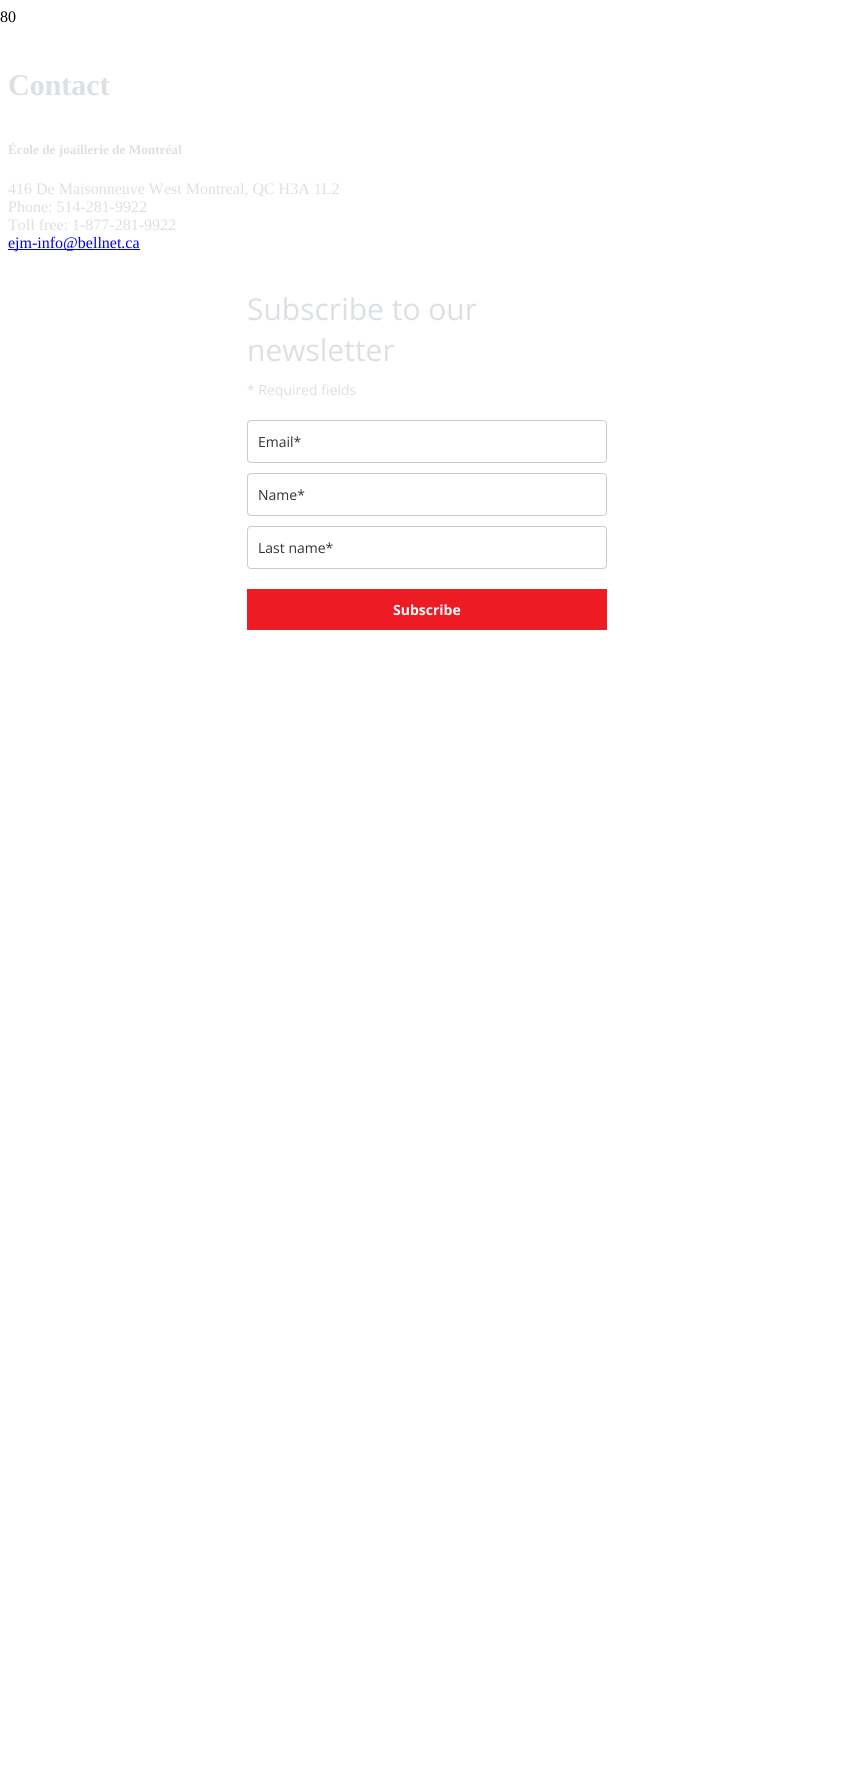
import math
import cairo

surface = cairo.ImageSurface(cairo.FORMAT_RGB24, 853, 1785)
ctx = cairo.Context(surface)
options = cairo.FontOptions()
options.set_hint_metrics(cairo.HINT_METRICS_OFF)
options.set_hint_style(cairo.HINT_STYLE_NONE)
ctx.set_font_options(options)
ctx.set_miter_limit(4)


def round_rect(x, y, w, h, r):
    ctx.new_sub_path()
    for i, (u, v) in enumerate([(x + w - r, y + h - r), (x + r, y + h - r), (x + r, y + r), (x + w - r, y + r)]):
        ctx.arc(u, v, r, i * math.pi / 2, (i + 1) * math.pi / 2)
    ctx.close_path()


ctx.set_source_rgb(1, 1, 1)
ctx.paint()
ctx.select_font_face("Liberation Serif")
ctx.set_font_size(16)
ctx.set_source_rgb(0, 0, 0)
ctx.move_to(0, 22)
ctx.show_text("80")
ctx.select_font_face("Liberation Serif", cairo.FONT_SLANT_NORMAL, cairo.FONT_WEIGHT_BOLD)
ctx.set_font_size(30)
ctx.set_source_rgb(0.863, 0.878, 0.89)
ctx.move_to(8, 95)
ctx.show_text("Contact")
ctx.set_font_size(13.25)
ctx.move_to(8, 154)
ctx.show_text("École de joaillerie de Montréal")
ctx.select_font_face("Liberation Serif")
ctx.set_font_size(16)
ctx.move_to(8, 194)
ctx.show_text("416 De Maisonneuve West Montreal, QC H3A 1L2")
ctx.move_to(8, 212)
ctx.show_text("Phone: 514-281-9922")
ctx.move_to(8, 230)
ctx.show_text("Toll free: 1-877-281-9922")
ctx.set_source_rgb(0, 0, 0.933)
ctx.rectangle(8, 249, 132, 1)
ctx.fill()
ctx.move_to(8, 248)
ctx.show_text("ejm-info@bellnet.ca")
ctx.select_font_face("Open Sans")
ctx.set_font_size(30)
ctx.set_source_rgb(0.863, 0.878, 0.89)
ctx.move_to(247, 320)
ctx.show_text("Subscribe to our")
ctx.move_to(247, 361)
ctx.show_text("newsletter")
ctx.set_font_size(14)
ctx.move_to(247, 395)
ctx.show_text("* Required fields")
round_rect(247.5, 420.5, 359, 42, 3.5)
ctx.set_source_rgb(0.8, 0.8, 0.8)
ctx.set_line_width(1)
ctx.stroke()
ctx.set_source_rgb(0.2, 0.2, 0.2)
ctx.move_to(258, 447)
ctx.show_text("Email*")
round_rect(247.5, 473.5, 359, 42, 3.5)
ctx.set_source_rgb(0.8, 0.8, 0.8)
ctx.stroke()
ctx.set_source_rgb(0.2, 0.2, 0.2)
ctx.move_to(258, 500)
ctx.show_text("Name*")
round_rect(247.5, 526.5, 359, 42, 3.5)
ctx.set_source_rgb(0.8, 0.8, 0.8)
ctx.stroke()
ctx.set_source_rgb(0.2, 0.2, 0.2)
ctx.move_to(258, 553)
ctx.show_text("Last name*")
ctx.set_source_rgb(0.929, 0.11, 0.141)
ctx.rectangle(247, 589, 360, 41)
ctx.fill()
ctx.select_font_face("Open Sans", cairo.FONT_SLANT_NORMAL, cairo.FONT_WEIGHT_BOLD)
ctx.set_source_rgb(1, 1, 1)
ctx.move_to(393, 615)
ctx.show_text("Subscribe")
surface.write_to_png("page.png")
